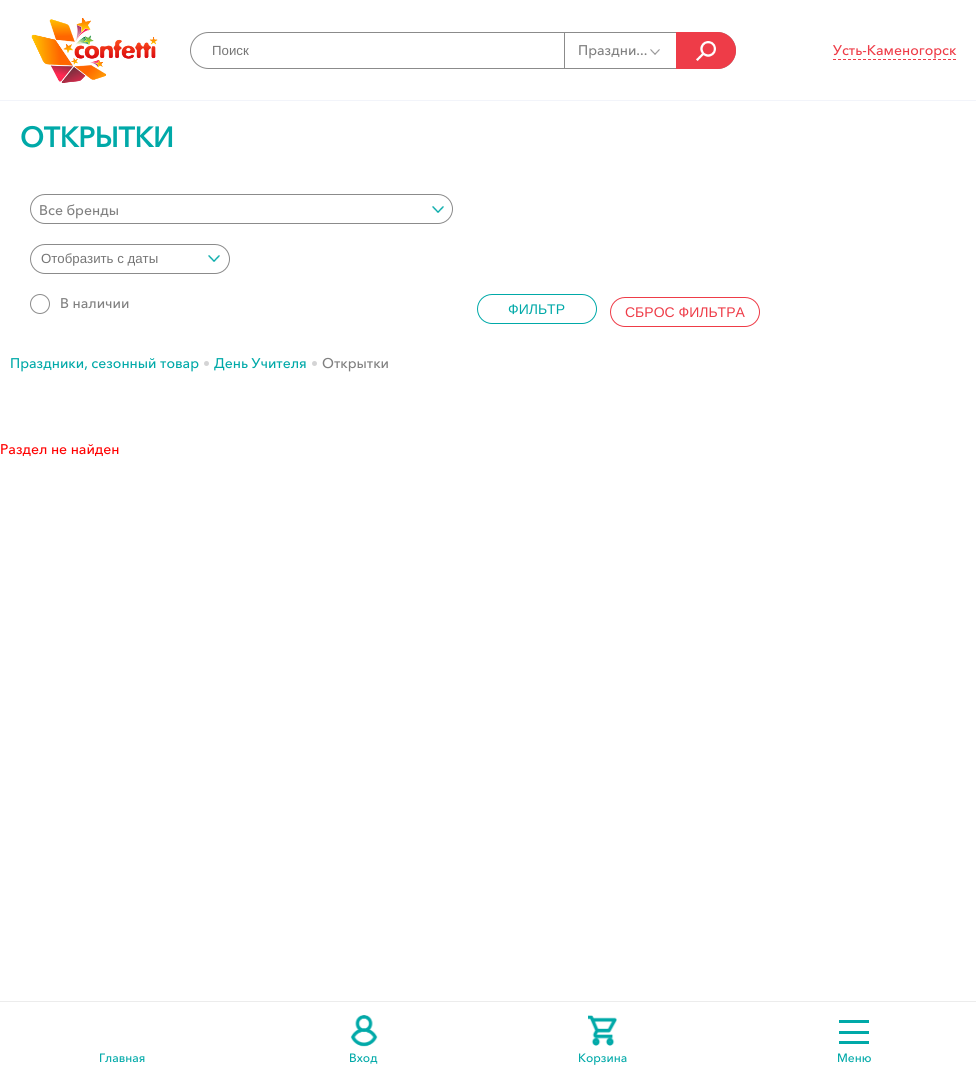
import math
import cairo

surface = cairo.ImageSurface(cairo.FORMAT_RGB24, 976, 1072)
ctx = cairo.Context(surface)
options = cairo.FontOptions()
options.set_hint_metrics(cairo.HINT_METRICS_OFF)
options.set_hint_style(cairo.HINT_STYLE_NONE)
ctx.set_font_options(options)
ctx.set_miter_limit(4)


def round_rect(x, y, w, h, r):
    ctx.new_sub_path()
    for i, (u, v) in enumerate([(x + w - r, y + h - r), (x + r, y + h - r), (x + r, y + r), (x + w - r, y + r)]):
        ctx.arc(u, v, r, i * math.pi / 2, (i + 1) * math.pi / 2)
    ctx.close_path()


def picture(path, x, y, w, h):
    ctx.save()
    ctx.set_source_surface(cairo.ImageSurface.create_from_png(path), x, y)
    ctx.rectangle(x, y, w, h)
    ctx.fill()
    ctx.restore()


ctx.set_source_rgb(1, 1, 1)
ctx.paint()
ctx.set_source_rgb(0.949, 0.957, 0.98)
ctx.rectangle(0, 100, 976, 1)
ctx.fill()
picture("img1.png", 31, 18, 127, 65)
round_rect(190.5, 32.5, 545, 36, 18)
ctx.set_source_rgb(0.545, 0.545, 0.545)
ctx.set_line_width(1)
ctx.stroke()
ctx.select_font_face("Liberation Sans")
ctx.set_font_size(13.25)
ctx.set_source_rgb(0.459, 0.459, 0.459)
ctx.move_to(212, 55)
ctx.show_text("Поиск")
ctx.set_source_rgb(0.545, 0.545, 0.545)
ctx.rectangle(564, 33, 1, 35)
ctx.fill()
ctx.select_font_face("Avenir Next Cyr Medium")
ctx.set_font_size(14)
ctx.set_source_rgb(0.502, 0.502, 0.502)
ctx.move_to(578, 55)
ctx.show_text("Праздни...")
picture("img2.png", 650, 49, 10, 6)
ctx.set_source_rgb(0.933, 0.235, 0.282)
ctx.new_path()
ctx.move_to(676, 32)
ctx.line_to(717.5, 32)
ctx.curve_to(727.5, 32, 736, 40.5, 736, 50.5)
ctx.curve_to(736, 60.5, 727.5, 69, 717.5, 69)
ctx.line_to(676, 69)
ctx.close_path()
ctx.fill()
picture("img3.png", 696, 41, 20, 20)
ctx.move_to(833, 55)
ctx.show_text("Усть-Каменогорск")
ctx.new_path()
ctx.move_to(833, 59.5)
ctx.line_to(956, 59.5)
ctx.set_dash([3, 2])
ctx.stroke()
ctx.select_font_face("Avenir Next Cyr", cairo.FONT_SLANT_NORMAL, cairo.FONT_WEIGHT_BOLD)
ctx.set_font_size(28)
ctx.set_source_rgb(0, 0.663, 0.659)
ctx.move_to(20, 147)
ctx.show_text("ОТКРЫТКИ")
round_rect(30.5, 194.5, 422, 29, 14.5)
ctx.set_source_rgb(0.545, 0.545, 0.545)
ctx.set_dash([])
ctx.stroke()
ctx.select_font_face("Avenir Next Cyr Medium")
ctx.set_font_size(14)
ctx.set_source_rgb(0.502, 0.502, 0.502)
ctx.move_to(39, 215)
ctx.show_text("Все бренды")
picture("img4.png", 432, 206, 12, 7)
picture("img4.png", 208, 255, 12, 7)
round_rect(30.5, 244.5, 199, 29, 14.5)
ctx.set_source_rgb(0.545, 0.545, 0.545)
ctx.stroke()
ctx.select_font_face("Liberation Sans")
ctx.set_font_size(13.25)
ctx.set_source_rgb(0.459, 0.459, 0.459)
ctx.move_to(41, 263)
ctx.show_text("Отобразить с даты")
ctx.new_path()
ctx.arc(40, 304, 9.5, 0, 2 * math.pi)
ctx.set_source_rgb(0.545, 0.545, 0.545)
ctx.stroke()
ctx.select_font_face("Avenir Next Cyr Medium")
ctx.set_font_size(14)
ctx.set_source_rgb(0.502, 0.502, 0.502)
ctx.move_to(60, 308)
ctx.show_text("В наличии")
round_rect(477.5, 294.5, 119, 29, 14.5)
ctx.set_source_rgb(0, 0.663, 0.659)
ctx.stroke()
ctx.select_font_face("Liberation Sans")
ctx.move_to(508, 314)
ctx.show_text("ФИЛЬТР")
round_rect(610.5, 297.5, 149, 29, 14.5)
ctx.set_source_rgb(0.933, 0.235, 0.282)
ctx.stroke()
ctx.move_to(625, 317)
ctx.show_text("СБРОС ФИЛЬТРА")
ctx.select_font_face("Avenir Next Cyr Medium")
ctx.set_source_rgb(0, 0.663, 0.659)
ctx.move_to(10, 368)
ctx.show_text("Праздники, сезонный товар")
ctx.set_source_rgb(0.831, 0.831, 0.835)
ctx.new_path()
ctx.arc(206.5, 363.5, 2.5, 0, 2 * math.pi)
ctx.fill()
ctx.set_source_rgb(0, 0.663, 0.659)
ctx.move_to(214, 368)
ctx.show_text("День Учителя")
ctx.set_source_rgb(0.831, 0.831, 0.835)
ctx.new_path()
ctx.arc(314.5, 363.5, 2.5, 0, 2 * math.pi)
ctx.fill()
ctx.set_source_rgb(0.502, 0.502, 0.502)
ctx.move_to(322, 368)
ctx.show_text("Открытки")
ctx.set_source_rgb(1, 0, 0)
ctx.move_to(0, 454)
ctx.show_text("Раздел не найден")
ctx.set_source_rgb(0.922, 0.922, 0.922)
ctx.rectangle(0, 1001, 976, 1)
ctx.fill()
ctx.set_font_size(12)
ctx.set_source_rgb(0, 0.663, 0.659)
ctx.move_to(99, 1062)
ctx.show_text("Главная")
picture("img5.png", 350, 1015, 28, 32)
ctx.move_to(349, 1062)
ctx.show_text("Вход")
picture("img6.png", 588, 1015, 29, 31)
ctx.move_to(578, 1062)
ctx.show_text("Корзина")
ctx.rectangle(839, 1031, 30, 3)
ctx.fill()
ctx.rectangle(839, 1020, 30, 3)
ctx.fill()
ctx.rectangle(839, 1041, 30, 3)
ctx.fill()
ctx.move_to(837, 1062)
ctx.show_text("Меню")
surface.write_to_png("page.png")
